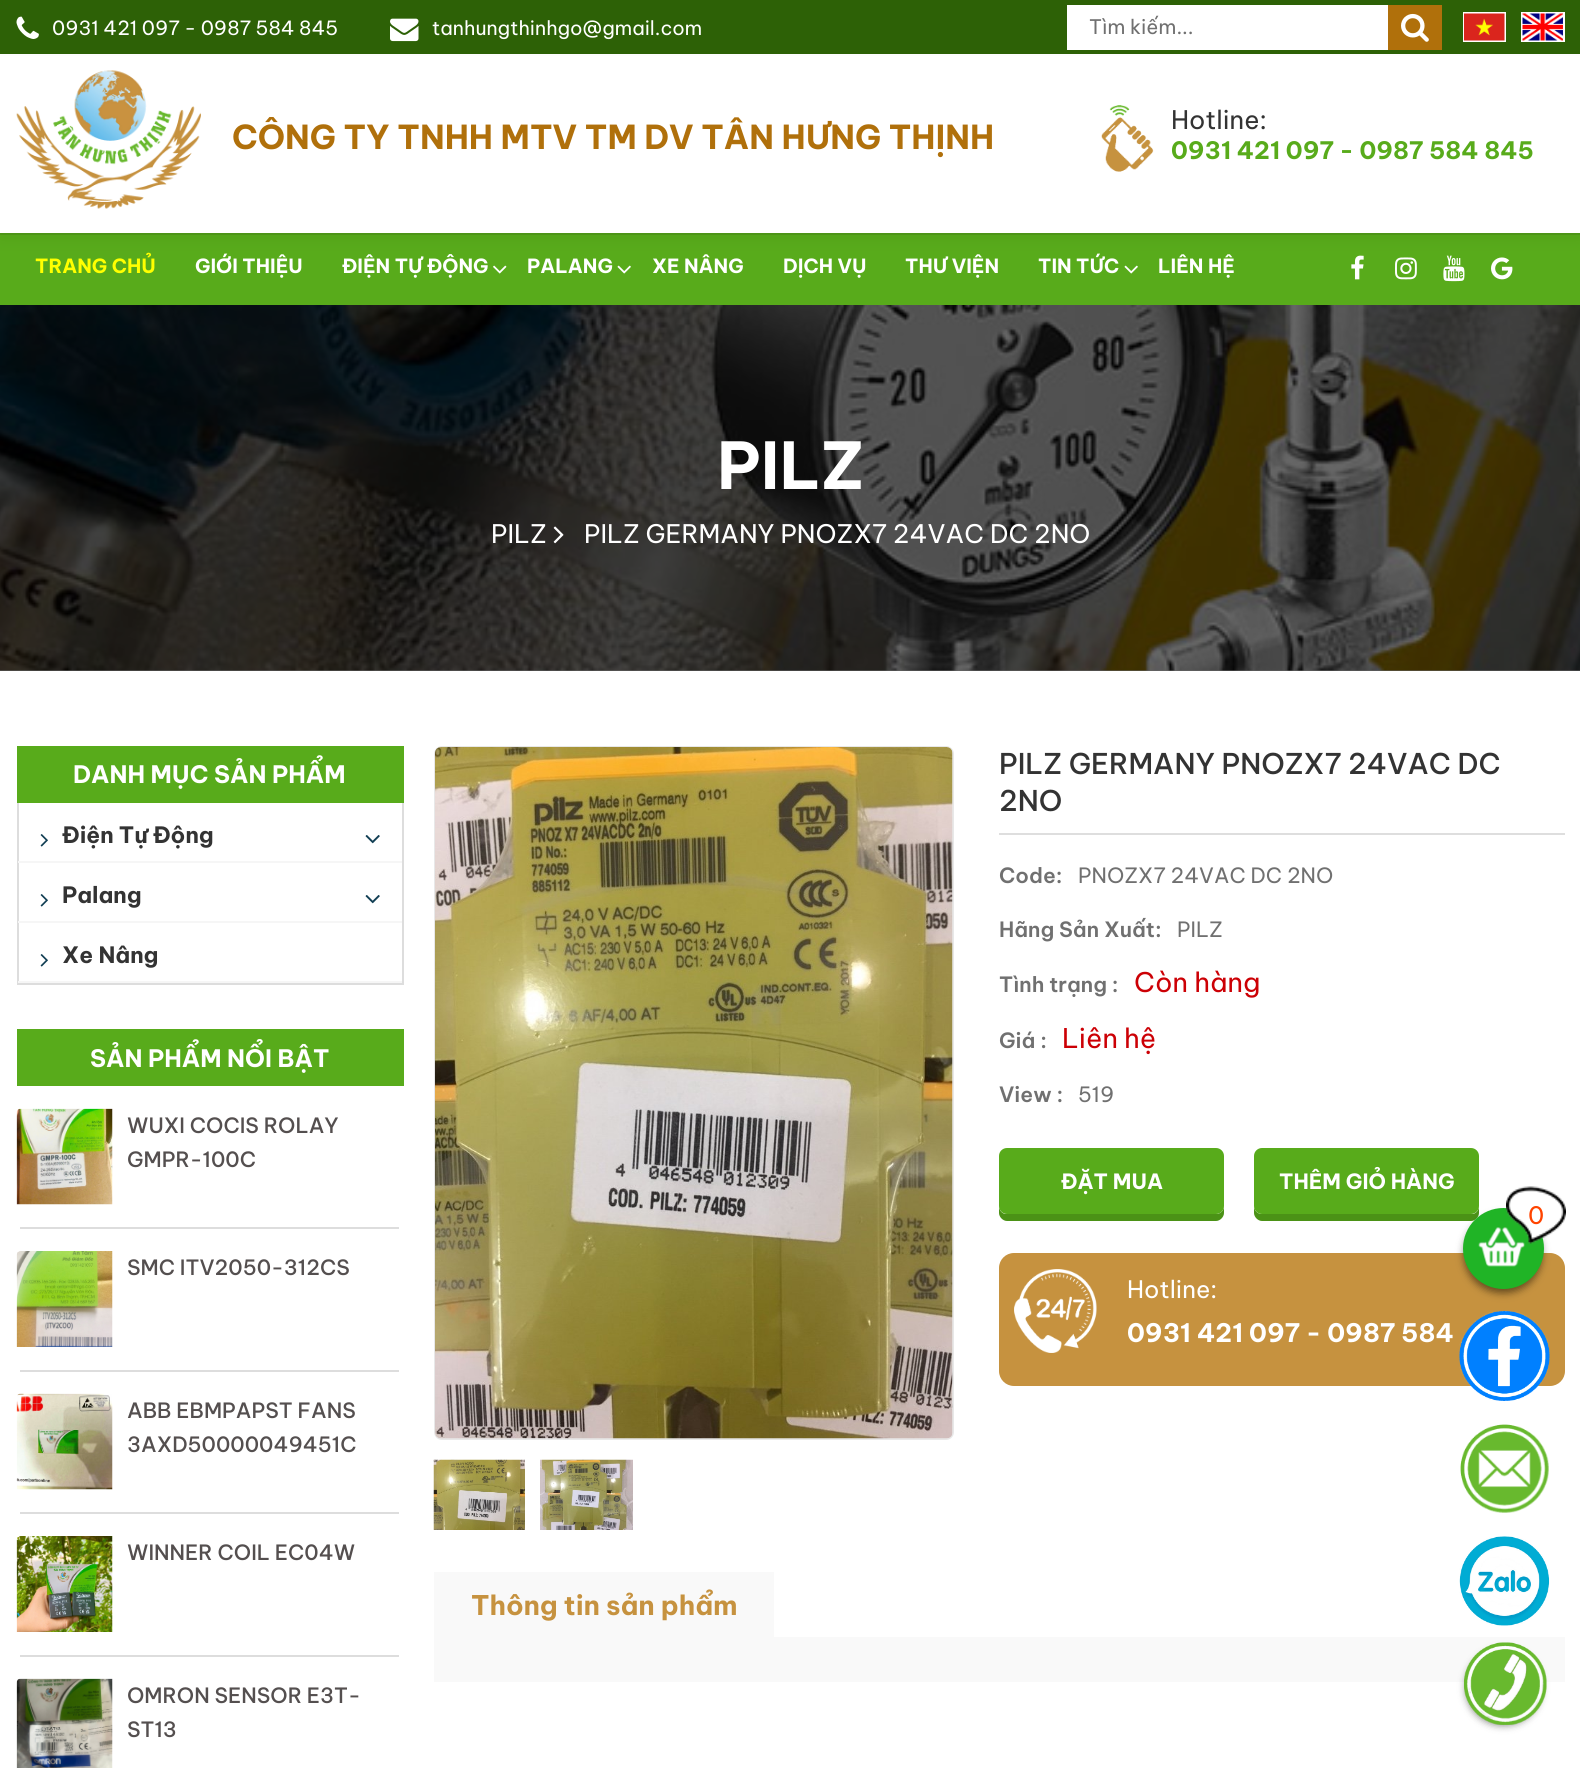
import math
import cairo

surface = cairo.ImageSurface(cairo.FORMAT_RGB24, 1580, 1768)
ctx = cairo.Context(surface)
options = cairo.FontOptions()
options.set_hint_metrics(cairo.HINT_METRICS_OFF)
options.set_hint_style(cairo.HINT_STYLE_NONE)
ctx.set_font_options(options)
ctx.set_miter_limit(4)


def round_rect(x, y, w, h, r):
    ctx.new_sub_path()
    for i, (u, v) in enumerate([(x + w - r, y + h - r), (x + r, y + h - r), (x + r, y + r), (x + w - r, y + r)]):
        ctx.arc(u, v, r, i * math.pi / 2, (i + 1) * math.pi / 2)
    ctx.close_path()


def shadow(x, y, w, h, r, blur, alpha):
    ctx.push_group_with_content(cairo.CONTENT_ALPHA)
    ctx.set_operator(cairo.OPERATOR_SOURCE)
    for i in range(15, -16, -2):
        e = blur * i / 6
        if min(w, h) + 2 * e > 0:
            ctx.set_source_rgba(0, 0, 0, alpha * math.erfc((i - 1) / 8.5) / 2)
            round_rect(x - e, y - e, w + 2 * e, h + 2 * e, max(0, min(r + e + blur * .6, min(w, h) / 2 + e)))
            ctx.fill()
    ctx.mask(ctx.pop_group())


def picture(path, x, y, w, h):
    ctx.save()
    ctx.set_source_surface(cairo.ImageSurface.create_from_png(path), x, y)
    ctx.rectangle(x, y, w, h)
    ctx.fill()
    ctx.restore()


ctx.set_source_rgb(1, 1, 1)
ctx.paint()
ctx.set_source_rgb(0.4, 0.4, 0.4)
ctx.rectangle(0, 670, 1580, 1)
ctx.fill()
ctx.set_source_rgb(0.176, 0.38, 0.027)
ctx.rectangle(0, 0, 1580, 54)
ctx.fill()
picture("img1.png", 16, 16, 23, 23)
ctx.select_font_face("Be Vietnam Pro")
ctx.set_font_size(19.5)
ctx.set_source_rgb(1, 1, 1)
ctx.move_to(52, 35)
ctx.show_text("0931 421 097 - 0987 584 845")
picture("img2.png", 390, 18, 29, 24)
ctx.move_to(432, 35)
ctx.show_text("tanhungthinhgo@gmail.com")
ctx.rectangle(1067, 5, 321, 45)
ctx.fill()
ctx.set_font_size(20)
ctx.set_source_rgb(0.439, 0.439, 0.439)
ctx.move_to(1089, 34)
ctx.show_text("Tìm kiếm...")
ctx.set_source_rgb(0.69, 0.439, 0.043)
ctx.rectangle(1388, 5, 54, 45)
ctx.fill()
picture("img3.png", 1401, 13, 28, 29)
ctx.rectangle(1464, 13, 41, 28)
ctx.set_source_rgb(1, 1, 1)
ctx.stroke()
picture("img4.png", 1464, 13, 41, 28)
ctx.rectangle(1522, 13, 42, 28)
ctx.stroke()
picture("img5.png", 1522, 13, 41, 28)
ctx.set_source_rgb(0.345, 0.671, 0.106)
ctx.rectangle(0, 235, 1580, 70)
ctx.fill()
ctx.set_source_rgb(0.314, 0.604, 0.094)
ctx.rectangle(0, 233, 1580, 2)
ctx.fill()
ctx.set_source_rgb(0, 0, 0)
shadow(0, 62, 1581, 178, 0, 7.5, 0.05)
ctx.set_source_rgb(1, 1, 1)
ctx.rectangle(0, 56, 1580, 177)
ctx.fill()
picture("img6.png", 16, 70, 185, 139)
ctx.select_font_face("Be Vietnam Pro", cairo.FONT_SLANT_NORMAL, cairo.FONT_WEIGHT_BOLD)
ctx.set_font_size(33)
ctx.set_source_rgb(0.69, 0.439, 0.043)
ctx.move_to(232, 149)
ctx.show_text("CÔNG TY TNHH MTV TM DV TÂN HƯNG THỊNH")
picture("img7.png", 1101, 105, 53, 67)
ctx.select_font_face("Be Vietnam Pro")
ctx.set_font_size(25.5)
ctx.set_source_rgb(0.2, 0.2, 0.2)
ctx.move_to(1171, 129)
ctx.show_text("Hotline:")
ctx.select_font_face("Be Vietnam Pro", cairo.FONT_SLANT_NORMAL, cairo.FONT_WEIGHT_BOLD)
ctx.set_font_size(24)
ctx.set_source_rgb(0.345, 0.671, 0.106)
ctx.move_to(1171, 159)
ctx.show_text("0931 421 097 - 0987 584 845")
ctx.set_font_size(19.5)
ctx.set_source_rgb(1, 1, 0)
ctx.move_to(35, 273)
ctx.show_text("TRANG CHỦ")
ctx.set_source_rgb(1, 1, 1)
ctx.move_to(195, 273)
ctx.show_text("GIỚI THIỆU")
ctx.move_to(342, 273)
ctx.show_text("ĐIỆN TỰ ĐỘNG")
picture("img8.png", 493, 265, 14, 9)
ctx.move_to(527, 273)
ctx.show_text("PALANG")
picture("img9.png", 617, 265, 14, 9)
ctx.move_to(652, 273)
ctx.show_text("XE NÂNG")
ctx.move_to(783, 273)
ctx.show_text("DỊCH VỤ")
ctx.move_to(905, 273)
ctx.show_text("THƯ VIỆN")
ctx.move_to(1038, 273)
ctx.show_text("TIN TỨC")
picture("img9.png", 1124, 265, 14, 9)
ctx.move_to(1158, 273)
ctx.show_text("LIÊN HỆ")
picture("img10.png", 1351, 255, 13, 25)
picture("img11.png", 1395, 257, 22, 23)
picture("img12.png", 1443, 255, 22, 27)
picture("img13.png", 1491, 257, 22, 23)
picture("img14.png", 0, 305, 1580, 366)
ctx.set_font_size(64.5)
ctx.move_to(717, 489)
ctx.show_text("PILZ")
ctx.select_font_face("Be Vietnam Pro")
ctx.set_font_size(25.5)
ctx.move_to(491, 543)
ctx.show_text("PILZ")
picture("img15.png", 553, 526, 11, 18)
ctx.move_to(584, 543)
ctx.show_text("PILZ GERMANY PNOZX7 24VAC DC 2NO")
ctx.set_source_rgb(0.345, 0.671, 0.106)
ctx.rectangle(17, 746, 387, 57)
ctx.fill()
ctx.select_font_face("Be Vietnam Pro", cairo.FONT_SLANT_NORMAL, cairo.FONT_WEIGHT_BOLD)
ctx.set_font_size(24)
ctx.set_source_rgb(1, 1, 1)
ctx.move_to(73, 783)
ctx.show_text("DANH MỤC SẢN PHẨM")
ctx.set_source_rgb(0.867, 0.867, 0.867)
ctx.rectangle(402, 803, 2, 181)
ctx.fill()
ctx.rectangle(17, 983, 387, 2)
ctx.fill()
ctx.rectangle(17, 803, 2, 181)
ctx.fill()
picture("img16.png", 40, 834, 8, 13)
ctx.set_source_rgb(0.961, 0.961, 0.961)
ctx.rectangle(18, 861, 384, 2)
ctx.fill()
ctx.set_font_size(22.5)
ctx.set_source_rgb(0.2, 0.2, 0.2)
ctx.move_to(62, 843)
ctx.show_text("Điện Tự Động")
picture("img17.png", 365, 835, 15, 9)
picture("img16.png", 40, 894, 8, 13)
ctx.set_source_rgb(0.961, 0.961, 0.961)
ctx.rectangle(18, 921, 384, 2)
ctx.fill()
ctx.set_source_rgb(0.2, 0.2, 0.2)
ctx.move_to(62, 903)
ctx.show_text("Palang")
picture("img17.png", 365, 895, 15, 9)
picture("img16.png", 40, 954, 8, 13)
ctx.set_source_rgb(0.961, 0.961, 0.961)
ctx.rectangle(18, 981, 384, 2)
ctx.fill()
ctx.set_source_rgb(0.2, 0.2, 0.2)
ctx.move_to(62, 963)
ctx.show_text("Xe Nâng")
ctx.set_source_rgb(0.345, 0.671, 0.106)
ctx.rectangle(17, 1029, 387, 57)
ctx.fill()
ctx.set_font_size(24)
ctx.set_source_rgb(1, 1, 1)
ctx.move_to(90, 1067)
ctx.show_text("SẢN PHẨM NỔI BẬT")
ctx.set_source_rgb(0.867, 0.867, 0.867)
ctx.rectangle(20, 1227, 379, 2)
ctx.fill()
picture("img18.png", 16, 1108, 97, 97)
ctx.select_font_face("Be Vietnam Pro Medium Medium")
ctx.set_font_size(21)
ctx.set_source_rgb(0.329, 0.31, 0.31)
ctx.move_to(127, 1133)
ctx.show_text("WUXI COCIS ROLAY")
ctx.move_to(127, 1167)
ctx.show_text("GMPR-100C")
ctx.set_source_rgb(0.867, 0.867, 0.867)
ctx.rectangle(20, 1370, 379, 2)
ctx.fill()
picture("img19.png", 16, 1251, 97, 96)
ctx.set_source_rgb(0.329, 0.31, 0.31)
ctx.move_to(127, 1275)
ctx.show_text("SMC ITV2050-312CS")
ctx.set_source_rgb(0.867, 0.867, 0.867)
ctx.rectangle(20, 1512, 379, 2)
ctx.fill()
picture("img20.png", 16, 1393, 97, 97)
ctx.set_source_rgb(0.329, 0.31, 0.31)
ctx.move_to(127, 1418)
ctx.show_text("ABB EBMPAPST FANS")
ctx.move_to(127, 1452)
ctx.show_text("3AXD50000049451C")
ctx.set_source_rgb(0.867, 0.867, 0.867)
ctx.rectangle(20, 1655, 379, 2)
ctx.fill()
picture("img21.png", 16, 1536, 97, 96)
ctx.set_source_rgb(0.329, 0.31, 0.31)
ctx.move_to(127, 1560)
ctx.show_text("WINNER COIL EC04W")
picture("img22.png", 16, 1678, 97, 90)
ctx.move_to(127, 1703)
ctx.show_text("OMRON SENSOR E3T-")
ctx.move_to(127, 1737)
ctx.show_text("ST13")
round_rect(435, 747, 518, 692, 7)
ctx.set_source_rgb(0.91, 0.91, 0.91)
ctx.stroke()
picture("img23.png", 435, 747, 518, 692)
picture("img24.png", 433, 1459, 92, 71)
picture("img25.png", 540, 1459, 93, 71)
ctx.set_source_rgb(0.871, 0.871, 0.871)
ctx.rectangle(999, 833, 566, 2)
ctx.fill()
ctx.set_font_size(28.5)
ctx.set_source_rgb(0.2, 0.2, 0.2)
ctx.move_to(999, 774)
ctx.show_text("PILZ GERMANY PNOZX7 24VAC DC")
ctx.move_to(999, 811)
ctx.show_text("2NO")
ctx.select_font_face("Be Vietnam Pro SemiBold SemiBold")
ctx.set_font_size(21)
ctx.set_source_rgb(0.439, 0.439, 0.439)
ctx.move_to(999, 883)
ctx.show_text("Code:")
ctx.select_font_face("Be Vietnam Pro")
ctx.move_to(1078, 883)
ctx.show_text("PNOZX7 24VAC DC 2NO")
ctx.select_font_face("Be Vietnam Pro SemiBold SemiBold")
ctx.move_to(999, 937)
ctx.show_text("Hãng Sản Xuất:")
ctx.select_font_face("Be Vietnam Pro")
ctx.move_to(1177, 937)
ctx.show_text("PILZ")
ctx.select_font_face("Be Vietnam Pro SemiBold SemiBold")
ctx.move_to(999, 992)
ctx.show_text("Tình trạng :")
ctx.select_font_face("Be Vietnam Pro")
ctx.set_font_size(27)
ctx.set_source_rgb(0.8, 0, 0.02)
ctx.move_to(1134, 992)
ctx.show_text("Còn hàng")
ctx.select_font_face("Be Vietnam Pro SemiBold SemiBold")
ctx.set_font_size(21)
ctx.set_source_rgb(0.439, 0.439, 0.439)
ctx.move_to(999, 1048)
ctx.show_text("Giá :")
ctx.select_font_face("Be Vietnam Pro")
ctx.set_font_size(27)
ctx.set_source_rgb(0.8, 0, 0.02)
ctx.move_to(1062, 1048)
ctx.show_text("Liên hệ")
ctx.select_font_face("Be Vietnam Pro SemiBold SemiBold")
ctx.set_font_size(21)
ctx.set_source_rgb(0.439, 0.439, 0.439)
ctx.move_to(999, 1102)
ctx.show_text("View :")
ctx.select_font_face("Be Vietnam Pro")
ctx.move_to(1078, 1102)
ctx.show_text("519")
ctx.set_source_rgb(0.294, 0.573, 0.086)
ctx.new_path()
ctx.move_to(999, 1206)
ctx.line_to(999, 1213)
ctx.curve_to(999, 1217, 1003, 1221, 1007, 1221)
ctx.line_to(1216, 1221)
ctx.curve_to(1220, 1221, 1224, 1217, 1224, 1213)
ctx.line_to(1224, 1206)
ctx.curve_to(1224, 1210, 1221, 1214, 1216, 1214)
ctx.line_to(1006, 1214)
ctx.curve_to(1002, 1214, 999, 1210, 999, 1206)
ctx.close_path()
ctx.fill()
ctx.set_source_rgb(0.345, 0.671, 0.106)
round_rect(999, 1148, 225, 66, 8)
ctx.fill()
ctx.select_font_face("Be Vietnam Pro", cairo.FONT_SLANT_NORMAL, cairo.FONT_WEIGHT_BOLD)
ctx.set_source_rgb(1, 1, 1)
ctx.move_to(1061, 1189)
ctx.show_text("ĐẶT MUA")
ctx.set_source_rgb(0.294, 0.573, 0.086)
ctx.new_path()
ctx.move_to(1254, 1206)
ctx.line_to(1254, 1213)
ctx.curve_to(1254, 1217, 1258, 1221, 1262, 1221)
ctx.line_to(1471, 1221)
ctx.curve_to(1475, 1221, 1479, 1217, 1479, 1213)
ctx.line_to(1479, 1206)
ctx.curve_to(1479, 1210, 1476, 1214, 1472, 1214)
ctx.line_to(1262, 1214)
ctx.curve_to(1257, 1214, 1254, 1210, 1254, 1206)
ctx.close_path()
ctx.fill()
ctx.set_source_rgb(0.345, 0.671, 0.106)
round_rect(1254, 1148, 225, 66, 8)
ctx.fill()
ctx.set_source_rgb(1, 1, 1)
ctx.move_to(1279, 1189)
ctx.show_text("THÊM GIỎ HÀNG")
ctx.set_source_rgb(0.776, 0.573, 0.247)
round_rect(999, 1253, 566, 133, 15)
ctx.fill()
picture("img26.png", 1014, 1269, 83, 84)
ctx.select_font_face("Be Vietnam Pro")
ctx.set_font_size(24)
ctx.set_source_rgb(1, 1, 1)
ctx.move_to(1127, 1298)
ctx.show_text("Hotline:")
ctx.select_font_face("Be Vietnam Pro", cairo.FONT_SLANT_NORMAL, cairo.FONT_WEIGHT_BOLD)
ctx.set_font_size(25.5)
ctx.move_to(1127, 1342)
ctx.show_text("0931 421 097 - 0987 584")
ctx.set_source_rgb(0.973, 0.973, 0.976)
ctx.rectangle(434, 1572, 340, 65)
ctx.fill()
ctx.set_font_size(27)
ctx.set_source_rgb(0.776, 0.573, 0.247)
ctx.move_to(471, 1615)
ctx.show_text("Thông tin sản phẩm")
ctx.set_source_rgb(0.973, 0.973, 0.976)
ctx.rectangle(434, 1637, 1131, 45)
ctx.fill()
ctx.set_source_rgb(0, 0, 0)
shadow(1464, 1215, 78, 78, 39, 4, 0.5)
ctx.set_source_rgb(0.125, 0.706, 0.149)
ctx.arc(1503.5, 1248.5, 40.5, 0, 2 * math.pi)
ctx.fill()
picture("img28.png", 1478, 1227, 47, 40)
picture("img27.png", 1506, 1186, 60, 58)
ctx.select_font_face("Be Vietnam Pro")
ctx.set_font_size(24)
ctx.set_source_rgb(1, 0.267, 0)
ctx.move_to(1528, 1224)
ctx.show_text("0")
picture("img29.png", 1459, 1311, 91, 90)
picture("img30.png", 1460, 1424, 89, 89)
picture("img31.png", 1459, 1536, 91, 90)
ctx.set_source_rgb(0, 0, 0)
shadow(1466, 1650, 75, 75, 37.5, 4, 0.5)
picture("img32.png", 1464, 1642, 83, 83)
surface.write_to_png("page.png")
